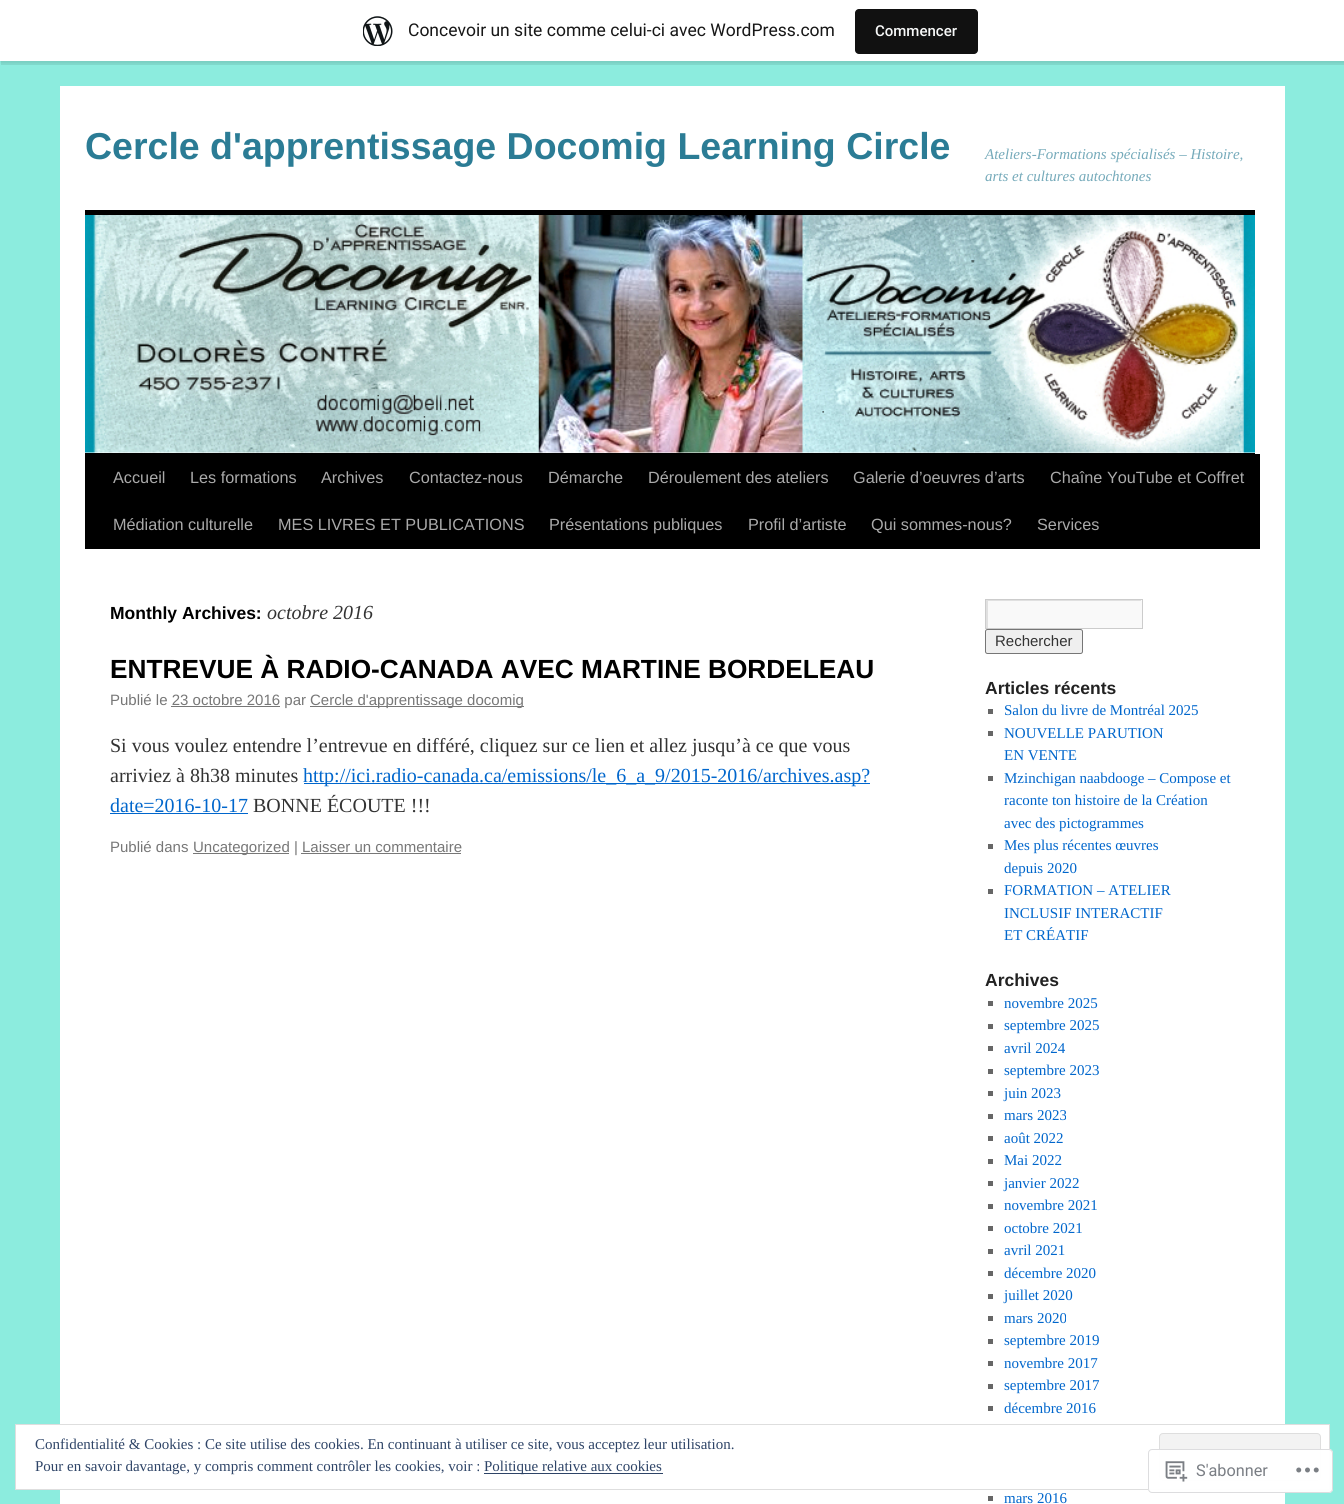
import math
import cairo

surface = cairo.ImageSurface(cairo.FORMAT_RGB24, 1344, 1504)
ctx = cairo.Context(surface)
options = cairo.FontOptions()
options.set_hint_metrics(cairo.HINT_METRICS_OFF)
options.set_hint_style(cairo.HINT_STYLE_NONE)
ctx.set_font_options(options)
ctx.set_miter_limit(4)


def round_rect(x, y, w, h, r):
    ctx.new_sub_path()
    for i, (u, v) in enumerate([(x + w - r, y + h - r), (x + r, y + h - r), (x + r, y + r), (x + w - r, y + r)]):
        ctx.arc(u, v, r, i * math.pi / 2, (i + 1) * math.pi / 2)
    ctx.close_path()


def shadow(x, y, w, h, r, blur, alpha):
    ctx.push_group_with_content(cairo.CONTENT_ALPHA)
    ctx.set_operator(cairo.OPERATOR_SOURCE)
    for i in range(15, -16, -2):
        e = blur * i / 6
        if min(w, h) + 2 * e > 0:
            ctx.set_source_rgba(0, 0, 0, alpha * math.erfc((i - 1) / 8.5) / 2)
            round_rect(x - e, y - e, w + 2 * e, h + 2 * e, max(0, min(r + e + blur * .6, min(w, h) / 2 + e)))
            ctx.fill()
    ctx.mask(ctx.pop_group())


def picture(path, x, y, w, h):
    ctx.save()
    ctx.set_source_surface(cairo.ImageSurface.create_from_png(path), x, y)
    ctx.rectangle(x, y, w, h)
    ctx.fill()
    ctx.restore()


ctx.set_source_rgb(0.549, 0.925, 0.871)
ctx.paint()
ctx.set_source_rgb(0, 0, 0)
shadow(0, 1, 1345, 62, 0, 1, 0.05)
ctx.set_source_rgba(0, 0, 0, 0.08)
ctx.new_path()
ctx.move_to(1, 61)
ctx.line_to(1, 65)
ctx.line_to(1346, 65)
ctx.line_to(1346, 4)
ctx.line_to(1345, 4)
ctx.line_to(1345, 61)
ctx.close_path()
ctx.fill()
ctx.set_source_rgb(1, 1, 1)
ctx.rectangle(0, 0, 1344, 61)
ctx.fill()
picture("img1.png", 363, 16, 30, 30)
ctx.select_font_face("Roboto")
ctx.set_font_size(17.5)
ctx.set_source_rgb(0.09, 0.09, 0.09)
ctx.move_to(408, 36)
ctx.show_text("Concevoir un site comme celui-ci avec WordPress.com")
ctx.set_source_rgb(0.067, 0.067, 0.067)
round_rect(855, 9, 123, 45, 4)
ctx.fill()
ctx.select_font_face("Roboto Medium")
ctx.set_font_size(15)
ctx.set_source_rgb(0.965, 0.969, 0.969)
ctx.move_to(875, 36)
ctx.show_text("Commencer")
ctx.set_source_rgb(1, 1, 1)
ctx.rectangle(60, 86, 1225, 1418)
ctx.fill()
ctx.select_font_face("Liberation Sans", cairo.FONT_SLANT_NORMAL, cairo.FONT_WEIGHT_BOLD)
ctx.set_font_size(37.5)
ctx.set_source_rgb(0.169, 0.486, 0.584)
ctx.move_to(85, 159)
ctx.show_text("Cercle d'apprentissage Docomig Learning Circle")
ctx.select_font_face("Liberation Serif", cairo.FONT_SLANT_ITALIC)
ctx.set_font_size(15)
ctx.set_source_rgb(0.459, 0.667, 0.729)
ctx.move_to(985, 159)
ctx.show_text("Ateliers-Formations spécialisés – Histoire,")
ctx.move_to(985, 181)
ctx.show_text("arts et cultures autochtones")
ctx.set_source_rgb(0, 0, 0)
ctx.rectangle(85, 210, 1170, 5)
ctx.fill()
ctx.rectangle(85, 453, 1170, 1)
ctx.fill()
picture("img2.png", 85, 215, 1170, 238)
ctx.rectangle(85, 454, 1175, 95)
ctx.fill()
ctx.select_font_face("Liberation Sans")
ctx.set_font_size(16.25)
ctx.set_source_rgb(0.667, 0.667, 0.667)
ctx.move_to(113, 483)
ctx.show_text("Accueil")
ctx.move_to(190, 483)
ctx.show_text("Les formations")
ctx.move_to(321, 483)
ctx.show_text("Archives")
ctx.move_to(409, 483)
ctx.show_text("Contactez-nous")
ctx.move_to(548, 483)
ctx.show_text("Démarche")
ctx.move_to(648, 483)
ctx.show_text("Déroulement des ateliers")
ctx.move_to(853, 483)
ctx.show_text("Galerie d’oeuvres d’arts")
ctx.move_to(1050, 483)
ctx.show_text("Chaîne YouTube et Coffret")
ctx.move_to(113, 530)
ctx.show_text("Médiation culturelle")
ctx.move_to(278, 530)
ctx.show_text("MES LIVRES ET PUBLICATIONS")
ctx.move_to(549, 530)
ctx.show_text("Présentations publiques")
ctx.move_to(748, 530)
ctx.show_text("Profil d’artiste")
ctx.move_to(871, 530)
ctx.show_text("Qui sommes-nous?")
ctx.move_to(1037, 530)
ctx.show_text("Services")
ctx.select_font_face("Liberation Sans", cairo.FONT_SLANT_NORMAL, cairo.FONT_WEIGHT_BOLD)
ctx.set_font_size(17.5)
ctx.set_source_rgb(0, 0, 0)
ctx.move_to(110, 619)
ctx.show_text("Monthly Archives:")
ctx.select_font_face("Liberation Serif", cairo.FONT_SLANT_ITALIC)
ctx.set_font_size(20)
ctx.set_source_rgb(0.2, 0.2, 0.2)
ctx.move_to(267, 619)
ctx.show_text("octobre 2016")
ctx.select_font_face("Liberation Sans", cairo.FONT_SLANT_NORMAL, cairo.FONT_WEIGHT_BOLD)
ctx.set_font_size(26.25)
ctx.set_source_rgb(0, 0, 0)
ctx.move_to(110, 678)
ctx.show_text("ENTREVUE À RADIO-CANADA AVEC MARTINE BORDELEAU")
ctx.select_font_face("Liberation Sans")
ctx.set_font_size(15)
ctx.set_source_rgb(0.467, 0.467, 0.467)
ctx.move_to(110, 705)
ctx.show_text("Publié le 23 octobre 2016 par")
ctx.rectangle(310, 706, 214, 1)
ctx.fill()
ctx.move_to(310, 705)
ctx.show_text("Cercle d'apprentissage docomig")
ctx.rectangle(171, 706, 109, 1)
ctx.fill()
ctx.select_font_face("Liberation Serif")
ctx.set_font_size(20)
ctx.set_source_rgb(0.2, 0.2, 0.2)
ctx.move_to(110, 752)
ctx.show_text("Si vous voulez entendre l’entrevue en différé, cliquez sur ce lien et allez jusqu’à ce que vous")
ctx.move_to(110, 782)
ctx.show_text("arriviez à 8h38 minutes")
ctx.set_source_rgb(0, 0.4, 0.8)
ctx.rectangle(304, 783, 566, 1)
ctx.fill()
ctx.move_to(303, 782)
ctx.show_text("http://ici.radio-canada.ca/emissions/le_6_a_9/2015-2016/archives.asp?")
ctx.move_to(110, 812)
ctx.show_text("date=2016-10-17")
ctx.rectangle(110, 813, 138, 1)
ctx.fill()
ctx.set_source_rgb(0.2, 0.2, 0.2)
ctx.move_to(253, 812)
ctx.show_text("BONNE ÉCOUTE !!!")
ctx.select_font_face("Liberation Sans")
ctx.set_font_size(15)
ctx.set_source_rgb(0.467, 0.467, 0.467)
ctx.move_to(110, 852)
ctx.show_text("Publié dans")
ctx.rectangle(193, 853, 96, 1)
ctx.fill()
ctx.move_to(193, 852)
ctx.show_text("Uncategorized | Laisser un commentaire")
ctx.rectangle(301, 853, 160, 1)
ctx.fill()
ctx.set_source_rgb(0.976, 0.976, 0.976)
ctx.rectangle(988, 600, 154, 28)
ctx.fill()
ctx.save()
ctx.rectangle(986, 600, 155, 28)
ctx.clip()
ctx.set_source_rgb(0.878, 0.878, 0.878)
ctx.set_fill_rule(cairo.FILL_RULE_EVEN_ODD)
ctx.new_path()
ctx.move_to(862, 476)
ctx.line_to(1265, 476)
ctx.line_to(1265, 751)
ctx.line_to(862, 751)
ctx.close_path()
ctx.move_to(988, 601)
ctx.line_to(1142, 601)
ctx.line_to(1142, 629)
ctx.line_to(988, 629)
ctx.close_path()
ctx.fill()
ctx.restore()
ctx.rectangle(985.5, 599.5, 157, 29)
ctx.set_source_rgb(0.8, 0.8, 0.8)
ctx.set_line_width(1)
ctx.stroke()
ctx.set_source_rgb(0.937, 0.937, 0.937)
round_rect(985.5, 629.5, 97, 24, 2)
ctx.fill_preserve()
ctx.set_source_rgb(0.463, 0.463, 0.463)
ctx.stroke()
ctx.set_source_rgb(0.2, 0.2, 0.2)
ctx.move_to(995, 646)
ctx.show_text("Rechercher")
ctx.select_font_face("Liberation Sans", cairo.FONT_SLANT_NORMAL, cairo.FONT_WEIGHT_BOLD)
ctx.set_font_size(17.5)
ctx.set_source_rgb(0.133, 0.133, 0.133)
ctx.move_to(985, 694)
ctx.show_text("Articles récents")
ctx.set_source_rgb(0.4, 0.4, 0.4)
ctx.rectangle(988, 709, 5, 5)
ctx.fill()
ctx.select_font_face("Liberation Serif")
ctx.set_font_size(15)
ctx.set_source_rgb(0, 0.4, 0.8)
ctx.move_to(1004, 715)
ctx.show_text("Salon du livre de Montréal 2025")
ctx.set_source_rgb(0.4, 0.4, 0.4)
ctx.rectangle(988, 731, 5, 5)
ctx.fill()
ctx.set_source_rgb(0, 0.4, 0.8)
ctx.move_to(1004, 738)
ctx.show_text("NOUVELLE PARUTION")
ctx.move_to(1004, 760)
ctx.show_text("EN VENTE")
ctx.set_source_rgb(0.4, 0.4, 0.4)
ctx.rectangle(988, 776, 5, 5)
ctx.fill()
ctx.set_source_rgb(0, 0.4, 0.8)
ctx.move_to(1004, 783)
ctx.show_text("Mzinchigan naabdooge – Compose et")
ctx.move_to(1004, 805)
ctx.show_text("raconte ton histoire de la Création")
ctx.move_to(1004, 828)
ctx.show_text("avec des pictogrammes")
ctx.set_source_rgb(0.4, 0.4, 0.4)
ctx.rectangle(988, 844, 5, 5)
ctx.fill()
ctx.set_source_rgb(0, 0.4, 0.8)
ctx.move_to(1004, 850)
ctx.show_text("Mes plus récentes œuvres")
ctx.move_to(1004, 873)
ctx.show_text("depuis 2020")
ctx.set_source_rgb(0.4, 0.4, 0.4)
ctx.rectangle(988, 889, 5, 5)
ctx.fill()
ctx.set_source_rgb(0, 0.4, 0.8)
ctx.move_to(1004, 895)
ctx.show_text("FORMATION – ATELIER")
ctx.move_to(1004, 918)
ctx.show_text("INCLUSIF INTERACTIF")
ctx.move_to(1004, 940)
ctx.show_text("ET CRÉATIF")
ctx.select_font_face("Liberation Sans", cairo.FONT_SLANT_NORMAL, cairo.FONT_WEIGHT_BOLD)
ctx.set_font_size(17.5)
ctx.set_source_rgb(0.133, 0.133, 0.133)
ctx.move_to(985, 986)
ctx.show_text("Archives")
ctx.set_source_rgb(0.4, 0.4, 0.4)
ctx.rectangle(988, 1001, 5, 5)
ctx.fill()
ctx.select_font_face("Liberation Serif")
ctx.set_font_size(15)
ctx.set_source_rgb(0, 0.4, 0.8)
ctx.move_to(1004, 1008)
ctx.show_text("novembre 2025")
ctx.set_source_rgb(0.4, 0.4, 0.4)
ctx.rectangle(988, 1024, 5, 5)
ctx.fill()
ctx.set_source_rgb(0, 0.4, 0.8)
ctx.move_to(1004, 1030)
ctx.show_text("septembre 2025")
ctx.set_source_rgb(0.4, 0.4, 0.4)
ctx.rectangle(988, 1046, 5, 5)
ctx.fill()
ctx.set_source_rgb(0, 0.4, 0.8)
ctx.move_to(1004, 1053)
ctx.show_text("avril 2024")
ctx.set_source_rgb(0.4, 0.4, 0.4)
ctx.rectangle(988, 1069, 5, 5)
ctx.fill()
ctx.set_source_rgb(0, 0.4, 0.8)
ctx.move_to(1004, 1075)
ctx.show_text("septembre 2023")
ctx.set_source_rgb(0.4, 0.4, 0.4)
ctx.rectangle(988, 1091, 5, 5)
ctx.fill()
ctx.set_source_rgb(0, 0.4, 0.8)
ctx.move_to(1004, 1098)
ctx.show_text("juin 2023")
ctx.set_source_rgb(0.4, 0.4, 0.4)
ctx.rectangle(988, 1114, 5, 5)
ctx.fill()
ctx.set_source_rgb(0, 0.4, 0.8)
ctx.move_to(1004, 1120)
ctx.show_text("mars 2023")
ctx.set_source_rgb(0.4, 0.4, 0.4)
ctx.rectangle(988, 1136, 5, 5)
ctx.fill()
ctx.set_source_rgb(0, 0.4, 0.8)
ctx.move_to(1004, 1143)
ctx.show_text("août 2022")
ctx.set_source_rgb(0.4, 0.4, 0.4)
ctx.rectangle(988, 1159, 5, 5)
ctx.fill()
ctx.set_source_rgb(0, 0.4, 0.8)
ctx.move_to(1004, 1165)
ctx.show_text("Mai 2022")
ctx.set_source_rgb(0.4, 0.4, 0.4)
ctx.rectangle(988, 1181, 5, 5)
ctx.fill()
ctx.set_source_rgb(0, 0.4, 0.8)
ctx.move_to(1004, 1188)
ctx.show_text("janvier 2022")
ctx.set_source_rgb(0.4, 0.4, 0.4)
ctx.rectangle(988, 1204, 5, 5)
ctx.fill()
ctx.set_source_rgb(0, 0.4, 0.8)
ctx.move_to(1004, 1210)
ctx.show_text("novembre 2021")
ctx.set_source_rgb(0.4, 0.4, 0.4)
ctx.rectangle(988, 1226, 5, 5)
ctx.fill()
ctx.set_source_rgb(0, 0.4, 0.8)
ctx.move_to(1004, 1233)
ctx.show_text("octobre 2021")
ctx.set_source_rgb(0.4, 0.4, 0.4)
ctx.rectangle(988, 1249, 5, 5)
ctx.fill()
ctx.set_source_rgb(0, 0.4, 0.8)
ctx.move_to(1004, 1255)
ctx.show_text("avril 2021")
ctx.set_source_rgb(0.4, 0.4, 0.4)
ctx.rectangle(988, 1271, 5, 5)
ctx.fill()
ctx.set_source_rgb(0, 0.4, 0.8)
ctx.move_to(1004, 1278)
ctx.show_text("décembre 2020")
ctx.set_source_rgb(0.4, 0.4, 0.4)
ctx.rectangle(988, 1294, 5, 5)
ctx.fill()
ctx.set_source_rgb(0, 0.4, 0.8)
ctx.move_to(1004, 1300)
ctx.show_text("juillet 2020")
ctx.set_source_rgb(0.4, 0.4, 0.4)
ctx.rectangle(988, 1316, 5, 5)
ctx.fill()
ctx.set_source_rgb(0, 0.4, 0.8)
ctx.move_to(1004, 1323)
ctx.show_text("mars 2020")
ctx.set_source_rgb(0.4, 0.4, 0.4)
ctx.rectangle(988, 1339, 5, 5)
ctx.fill()
ctx.set_source_rgb(0, 0.4, 0.8)
ctx.move_to(1004, 1345)
ctx.show_text("septembre 2019")
ctx.set_source_rgb(0.4, 0.4, 0.4)
ctx.rectangle(988, 1361, 5, 5)
ctx.fill()
ctx.set_source_rgb(0, 0.4, 0.8)
ctx.move_to(1004, 1368)
ctx.show_text("novembre 2017")
ctx.set_source_rgb(0.4, 0.4, 0.4)
ctx.rectangle(988, 1384, 5, 5)
ctx.fill()
ctx.set_source_rgb(0, 0.4, 0.8)
ctx.move_to(1004, 1390)
ctx.show_text("septembre 2017")
ctx.set_source_rgb(0.4, 0.4, 0.4)
ctx.rectangle(988, 1406, 5, 5)
ctx.fill()
ctx.set_source_rgb(0, 0.4, 0.8)
ctx.move_to(1004, 1413)
ctx.show_text("décembre 2016")
ctx.set_source_rgb(0.4, 0.4, 0.4)
ctx.rectangle(988, 1496, 5, 5)
ctx.fill()
ctx.set_source_rgb(0, 0.4, 0.8)
ctx.move_to(1004, 1503)
ctx.show_text("mars 2016")
ctx.set_source_rgb(1, 1, 1)
ctx.rectangle(15.5, 1424.5, 1314, 65)
ctx.fill_preserve()
ctx.set_source_rgb(0.871, 0.871, 0.871)
ctx.stroke()
ctx.set_source_rgb(0.18, 0.267, 0.404)
ctx.move_to(35, 1449)
ctx.show_text("Confidentialité & Cookies : Ce site utilise des cookies. En continuant à utiliser ce site, vous acceptez leur utilisation.")
ctx.set_source_rgb(0.953, 0.953, 0.953)
round_rect(1159.5, 1433.5, 161, 47, 3.5)
ctx.fill_preserve()
ctx.set_source_rgb(0.871, 0.871, 0.871)
ctx.stroke()
ctx.set_source_rgb(0.18, 0.267, 0.404)
ctx.move_to(35, 1471)
ctx.show_text("Pour en savoir davantage, y compris comment contrôler les cookies, voir :")
ctx.rectangle(484, 1473, 179, 1)
ctx.fill()
ctx.move_to(484, 1471)
ctx.show_text("Politique relative aux cookies")
ctx.set_source_rgba(1, 1, 1, 0.98)
round_rect(1148, 1449, 185, 44, 4)
ctx.fill()
round_rect(1148.5, 1449.5, 184, 43, 3.5)
ctx.set_source_rgba(0.863, 0.863, 0.871, 0.98)
ctx.stroke()
picture("img3.png", 1165, 1461, 23, 21)
ctx.select_font_face("Roboto")
ctx.set_font_size(16.25)
ctx.set_source_rgb(0.478, 0.494, 0.518)
ctx.move_to(1196, 1476)
ctx.show_text("S'abonner")
picture("img4.png", 1296, 1467, 23, 6)
surface.write_to_png("page.png")
